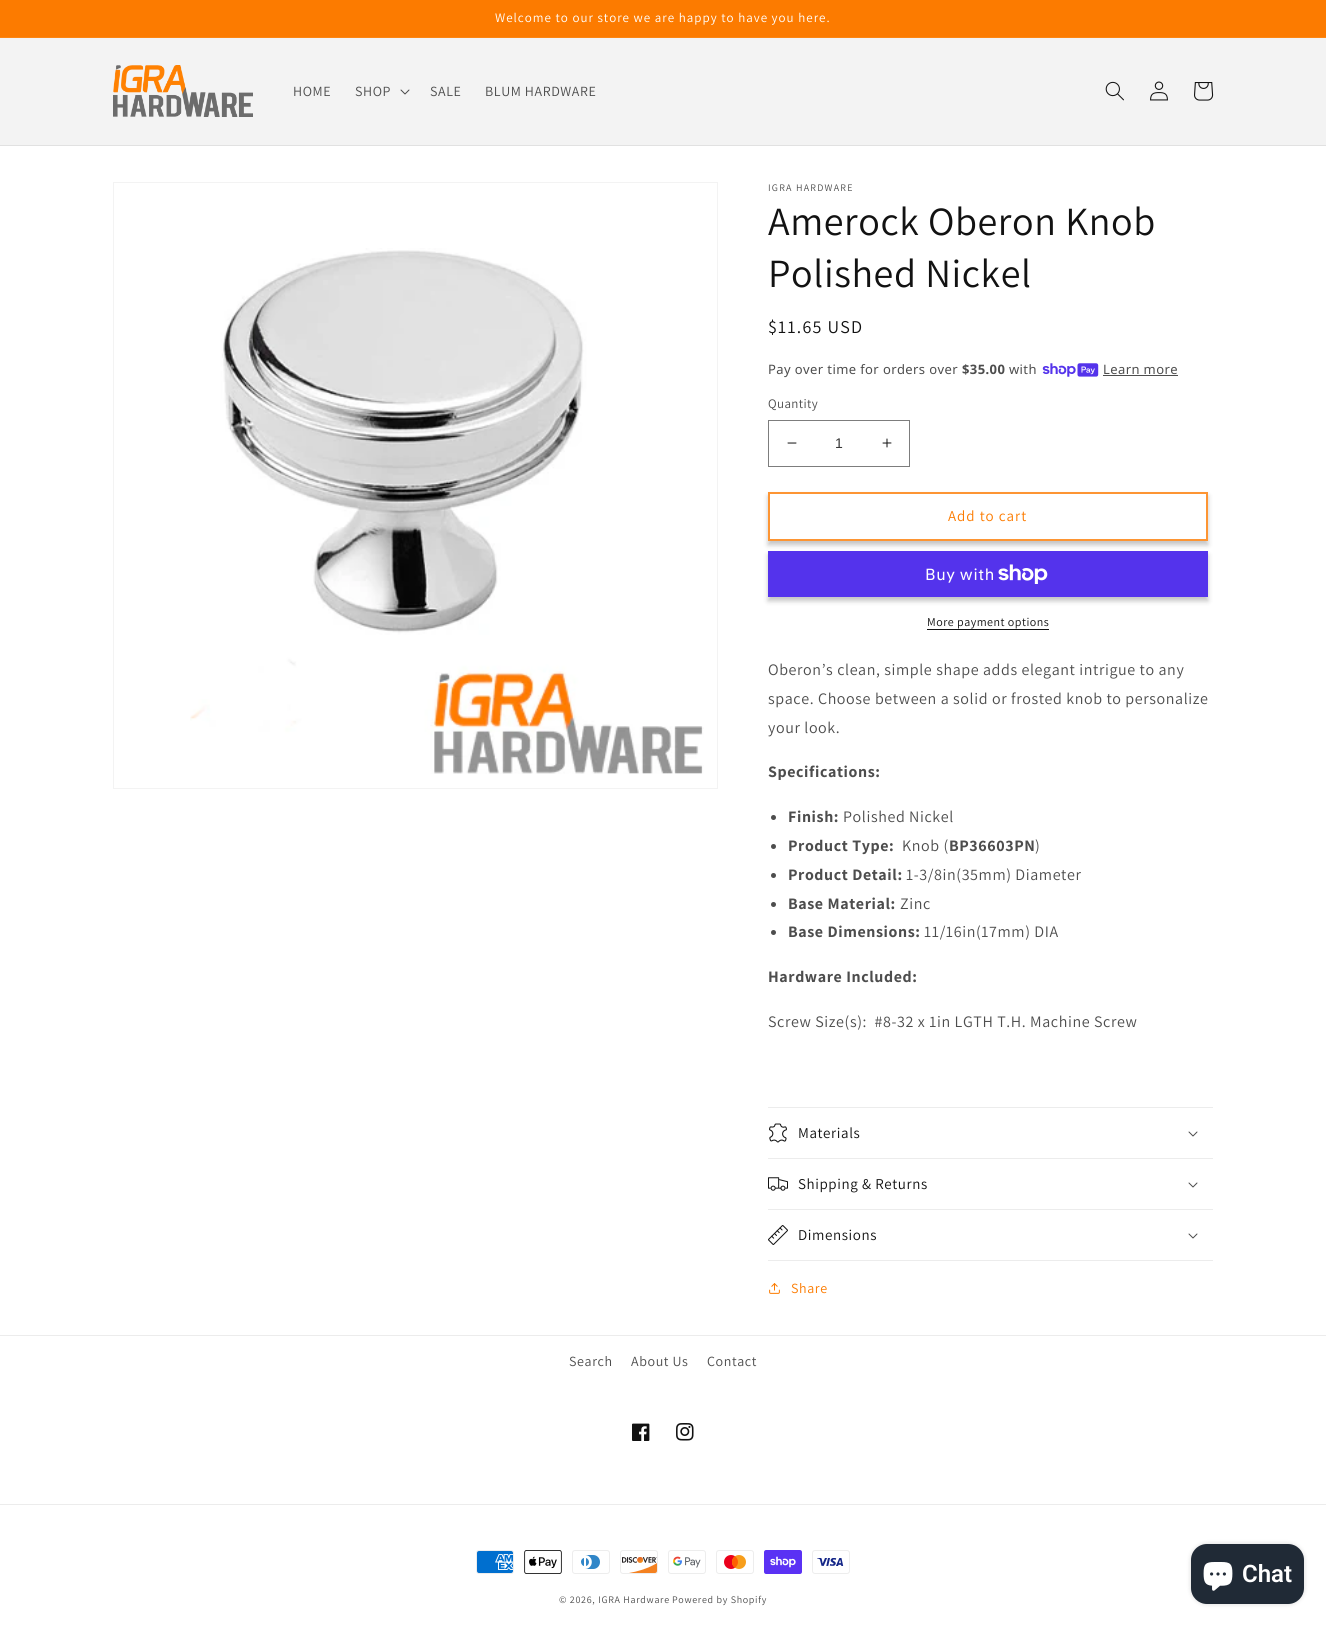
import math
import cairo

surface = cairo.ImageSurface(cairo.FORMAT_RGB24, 1326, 1625)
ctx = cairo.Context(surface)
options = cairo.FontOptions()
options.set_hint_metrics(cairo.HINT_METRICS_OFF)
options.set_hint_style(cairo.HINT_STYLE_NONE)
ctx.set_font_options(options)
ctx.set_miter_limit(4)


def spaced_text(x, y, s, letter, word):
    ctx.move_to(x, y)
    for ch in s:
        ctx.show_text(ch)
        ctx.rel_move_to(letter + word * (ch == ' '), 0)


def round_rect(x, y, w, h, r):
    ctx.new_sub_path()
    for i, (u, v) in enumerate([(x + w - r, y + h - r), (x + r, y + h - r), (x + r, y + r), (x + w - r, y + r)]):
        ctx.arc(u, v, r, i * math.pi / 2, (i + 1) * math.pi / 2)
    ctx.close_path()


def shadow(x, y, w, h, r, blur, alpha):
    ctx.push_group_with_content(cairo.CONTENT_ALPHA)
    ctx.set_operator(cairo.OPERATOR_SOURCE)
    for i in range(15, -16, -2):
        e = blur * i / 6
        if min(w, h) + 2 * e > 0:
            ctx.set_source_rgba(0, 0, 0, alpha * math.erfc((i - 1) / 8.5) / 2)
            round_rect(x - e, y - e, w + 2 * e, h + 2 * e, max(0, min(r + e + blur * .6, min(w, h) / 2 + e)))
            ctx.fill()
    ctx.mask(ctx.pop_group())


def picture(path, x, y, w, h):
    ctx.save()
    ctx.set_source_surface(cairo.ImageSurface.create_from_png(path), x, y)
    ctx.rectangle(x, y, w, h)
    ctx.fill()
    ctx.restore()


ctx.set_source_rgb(1, 1, 1)
ctx.paint()
ctx.set_source_rgb(0.988, 0.482, 0)
ctx.rectangle(0, 0, 1326, 37)
ctx.fill()
ctx.set_source_rgb(0.988, 0.525, 0.078)
ctx.rectangle(0, 37, 1326, 1)
ctx.fill()
ctx.select_font_face("Assistant")
ctx.set_font_size(13)
ctx.set_source_rgb(1, 1, 1)
spaced_text(495, 22, "Welcome to our store we are happy to have you here.", 1, 0)
ctx.set_source_rgb(0.953, 0.953, 0.953)
ctx.rectangle(0, 38, 1326, 107)
ctx.fill()
ctx.set_source_rgb(0.882, 0.882, 0.882)
ctx.rectangle(0, 145, 1326, 1)
ctx.fill()
picture("img1.png", 113, 65, 140, 52)
ctx.set_font_size(14)
ctx.set_source_rgb(0.302, 0.302, 0.302)
spaced_text(293, 96, "HOME", 0.6, 0)
spaced_text(355, 96, "SHOP", 0.6, 0)
picture("img2.png", 400, 89, 10, 6)
spaced_text(430, 96, "SALE", 0.6, 0)
spaced_text(485, 96, "BLUM HARDWARE", 0.6, 0)
picture("img3.png", 1105, 81, 19, 20)
picture("img4.png", 1150, 81, 18, 20)
picture("img5.png", 1194, 82, 20, 19)
ctx.rectangle(113.5, 182.5, 604, 606)
ctx.set_source_rgb(0.953, 0.953, 0.953)
ctx.set_line_width(1)
ctx.stroke()
picture("img6.png", 190, 248, 514, 526)
ctx.set_font_size(10)
ctx.set_source_rgb(0.302, 0.302, 0.302)
spaced_text(768, 191, "IGRA HARDWARE", 1.25, 0)
ctx.set_font_size(40)
ctx.set_source_rgb(0.071, 0.071, 0.071)
spaced_text(768, 235, "Amerock Oberon Knob", 0.6, 0)
spaced_text(768, 287, "Polished Nickel", 0.6, 0)
ctx.set_font_size(18)
spaced_text(768, 333, "$11.65 USD", 1.25, 0)
ctx.select_font_face("Noto Sans")
ctx.set_font_size(13)
ctx.set_source_rgb(0.302, 0.302, 0.302)
spaced_text(768, 374, "Pay over time for orders over", 0.4, 0)
ctx.select_font_face("Noto Sans", cairo.FONT_SLANT_NORMAL, cairo.FONT_WEIGHT_BOLD)
spaced_text(962, 374, "$35.00", 0.4, 0)
ctx.select_font_face("Noto Sans")
spaced_text(1009, 374, "with", 0.4, 0)
picture("img7.png", 1042, 363, 57, 14)
spaced_text(1103, 374, "Learn more", 0.4, 0)
ctx.rectangle(1103, 375, 75, 1)
ctx.fill()
ctx.select_font_face("Assistant")
spaced_text(768, 408, "Quantity", 0.4, 0)
picture("img8.png", 787, 442, 10, 2)
picture("img9.png", 882, 438, 10, 10)
ctx.rectangle(768.5, 420.5, 141, 46)
ctx.set_source_rgb(0.49, 0.49, 0.49)
ctx.stroke()
ctx.select_font_face("Liberation Sans")
ctx.set_font_size(14)
ctx.set_source_rgb(0.212, 0.212, 0.212)
ctx.move_to(835, 448)
ctx.show_text("1")
ctx.save()
ctx.set_fill_rule(cairo.FILL_RULE_EVEN_ODD)
ctx.new_path()
ctx.move_to(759, 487)
ctx.line_to(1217, 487)
ctx.line_to(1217, 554)
ctx.line_to(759, 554)
ctx.close_path()
ctx.move_to(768, 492)
ctx.line_to(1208, 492)
ctx.line_to(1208, 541)
ctx.line_to(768, 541)
ctx.close_path()
ctx.clip()
ctx.set_source_rgb(0.071, 0.071, 0.071)
shadow(768, 496, 440, 49, 0, 2.5, 0.25)
ctx.restore()
ctx.rectangle(769, 493, 438, 47)
ctx.set_source_rgb(0.992, 0.584, 0.2)
ctx.set_line_width(2)
ctx.stroke()
ctx.select_font_face("Assistant")
ctx.set_font_size(15)
ctx.set_source_rgb(0.988, 0.482, 0)
spaced_text(948, 521, "Add to cart", 1, 0)
ctx.set_source_rgb(0.071, 0.071, 0.071)
shadow(768, 555, 440, 46, 0, 2.5, 0.25)
ctx.set_source_rgb(0.329, 0.2, 0.922)
ctx.rectangle(768, 551, 440, 46)
ctx.fill()
ctx.select_font_face("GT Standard")
ctx.set_font_size(16)
ctx.set_source_rgb(1, 1, 1)
spaced_text(925, 580, "Buy with", 0.6, 0)
picture("img10.png", 998, 564, 50, 20)
ctx.select_font_face("Assistant")
ctx.set_font_size(12)
ctx.set_source_rgb(0.071, 0.071, 0.071)
spaced_text(927, 626, "More payment options", 0.5, 0)
ctx.rectangle(927, 629, 122, 1)
ctx.fill()
ctx.set_font_size(16)
ctx.set_source_rgb(0.302, 0.302, 0.302)
spaced_text(768, 675, "Oberon’s clean, simple shape adds elegant intrigue to any", 0.6, 0)
spaced_text(768, 704, "space. Choose between a solid or frosted knob to personalize", 0.6, 0)
spaced_text(768, 733, "your look.", 0.6, 0)
ctx.select_font_face("Assistant", cairo.FONT_SLANT_NORMAL, cairo.FONT_WEIGHT_BOLD)
spaced_text(768, 777, "Specifications:", 0.6, 0)
ctx.new_path()
ctx.arc(773.5, 817.5, 2.5, 0, 2 * math.pi)
ctx.fill()
spaced_text(788, 822, "Finish:", 0.6, 0)
ctx.select_font_face("Assistant")
spaced_text(843, 822, "Polished Nickel", 0.6, 0)
ctx.new_path()
ctx.arc(773.5, 846.5, 2.5, 0, 2 * math.pi)
ctx.fill()
ctx.select_font_face("Assistant", cairo.FONT_SLANT_NORMAL, cairo.FONT_WEIGHT_BOLD)
spaced_text(788, 851, "Product Type:", 0.6, 0)
ctx.select_font_face("Assistant")
spaced_text(902, 851, "Knob (", 0.6, 0)
ctx.select_font_face("Assistant", cairo.FONT_SLANT_NORMAL, cairo.FONT_WEIGHT_BOLD)
spaced_text(949, 851, "BP36603PN", 0.6, 0)
ctx.select_font_face("Assistant")
spaced_text(1035, 851, ")", 0.6, 0)
ctx.new_path()
ctx.arc(773.5, 875.5, 2.5, 0, 2 * math.pi)
ctx.fill()
ctx.select_font_face("Assistant", cairo.FONT_SLANT_NORMAL, cairo.FONT_WEIGHT_BOLD)
spaced_text(788, 880, "Product Detail:", 0.6, 0)
ctx.select_font_face("Assistant")
spaced_text(906, 880, "1-3/8in(35mm) Diameter", 0.6, 0)
ctx.new_path()
ctx.arc(773.5, 904.5, 2.5, 0, 2 * math.pi)
ctx.fill()
ctx.select_font_face("Assistant", cairo.FONT_SLANT_NORMAL, cairo.FONT_WEIGHT_BOLD)
spaced_text(788, 909, "Base Material:", 0.6, 0)
ctx.select_font_face("Assistant")
spaced_text(900, 909, "Zinc", 0.6, 0)
ctx.new_path()
ctx.arc(773.5, 932.5, 2.5, 0, 2 * math.pi)
ctx.fill()
ctx.select_font_face("Assistant", cairo.FONT_SLANT_NORMAL, cairo.FONT_WEIGHT_BOLD)
spaced_text(788, 937, "Base Dimensions:", 0.6, 0)
ctx.select_font_face("Assistant")
spaced_text(924, 937, "11/16in(17mm) DIA", 0.6, 0)
ctx.select_font_face("Assistant", cairo.FONT_SLANT_NORMAL, cairo.FONT_WEIGHT_BOLD)
spaced_text(768, 982, "Hardware Included:", 0.6, 0)
ctx.select_font_face("Assistant")
spaced_text(768, 1027, "Screw Size(s):  #8-32 x 1in LGTH T.H. Machine Screw", 0.6, 0)
ctx.set_source_rgb(0.925, 0.925, 0.925)
ctx.rectangle(768, 1107, 445, 1)
ctx.fill()
ctx.rectangle(768, 1158, 445, 1)
ctx.fill()
picture("img11.png", 769, 1123, 18, 20)
ctx.set_font_size(15)
ctx.set_source_rgb(0.071, 0.071, 0.071)
spaced_text(798, 1138, "Materials", 0.6, 0)
picture("img12.png", 1188, 1131, 10, 6)
ctx.set_source_rgb(0.925, 0.925, 0.925)
ctx.rectangle(768, 1209, 445, 1)
ctx.fill()
picture("img13.png", 768, 1177, 20, 14)
ctx.set_source_rgb(0.071, 0.071, 0.071)
spaced_text(798, 1189, "Shipping & Returns", 0.6, 0)
picture("img12.png", 1188, 1182, 10, 6)
ctx.set_source_rgb(0.925, 0.925, 0.925)
ctx.rectangle(768, 1260, 445, 1)
ctx.fill()
picture("img14.png", 768, 1225, 20, 20)
ctx.set_source_rgb(0.071, 0.071, 0.071)
spaced_text(798, 1240, "Dimensions", 0.6, 0)
picture("img12.png", 1188, 1233, 10, 6)
picture("img15.png", 769, 1283, 11, 11)
ctx.set_font_size(14)
ctx.set_source_rgb(0.988, 0.482, 0)
spaced_text(791, 1293, "Share", 0.6, 0)
ctx.set_source_rgb(0.925, 0.925, 0.925)
ctx.rectangle(0, 1335, 1326, 1)
ctx.fill()
ctx.set_source_rgb(0.302, 0.302, 0.302)
spaced_text(569, 1366, "Search", 0.6, 0)
spaced_text(631, 1366, "About Us", 0.6, 0)
spaced_text(707, 1366, "Contact", 0.6, 0)
picture("img16.png", 632, 1423, 18, 18)
picture("img17.png", 676, 1423, 18, 18)
ctx.set_source_rgb(0.925, 0.925, 0.925)
ctx.rectangle(0, 1504, 1326, 1)
ctx.fill()
picture("img18.png", 476, 1550, 38, 24)
picture("img19.png", 524, 1550, 38, 24)
picture("img20.png", 572, 1550, 38, 24)
picture("img21.png", 620, 1550, 38, 24)
picture("img22.png", 668, 1550, 38, 24)
picture("img23.png", 716, 1550, 38, 24)
picture("img24.png", 764, 1550, 38, 24)
picture("img25.png", 812, 1550, 38, 24)
ctx.set_font_size(10)
ctx.set_source_rgb(0.302, 0.302, 0.302)
spaced_text(559, 1603, "© 2026, IGRA Hardware", 0.7, 0)
spaced_text(672, 1603, "Powered by Shopify", 0.7, 0)
ctx.set_source_rgb(0, 0, 0)
shadow(1191, 1544, 113, 60, 16, 2.5, 0.15)
ctx.set_source_rgb(0.125, 0.165, 0.212)
round_rect(1191, 1544, 113, 60, 16)
ctx.fill()
picture("img26.png", 1203, 1562, 30, 29)
ctx.select_font_face("Roboto SemiBold")
ctx.set_font_size(24)
ctx.set_source_rgb(1, 1, 1)
ctx.move_to(1242, 1582)
ctx.show_text("Chat")
surface.write_to_png("page.png")
